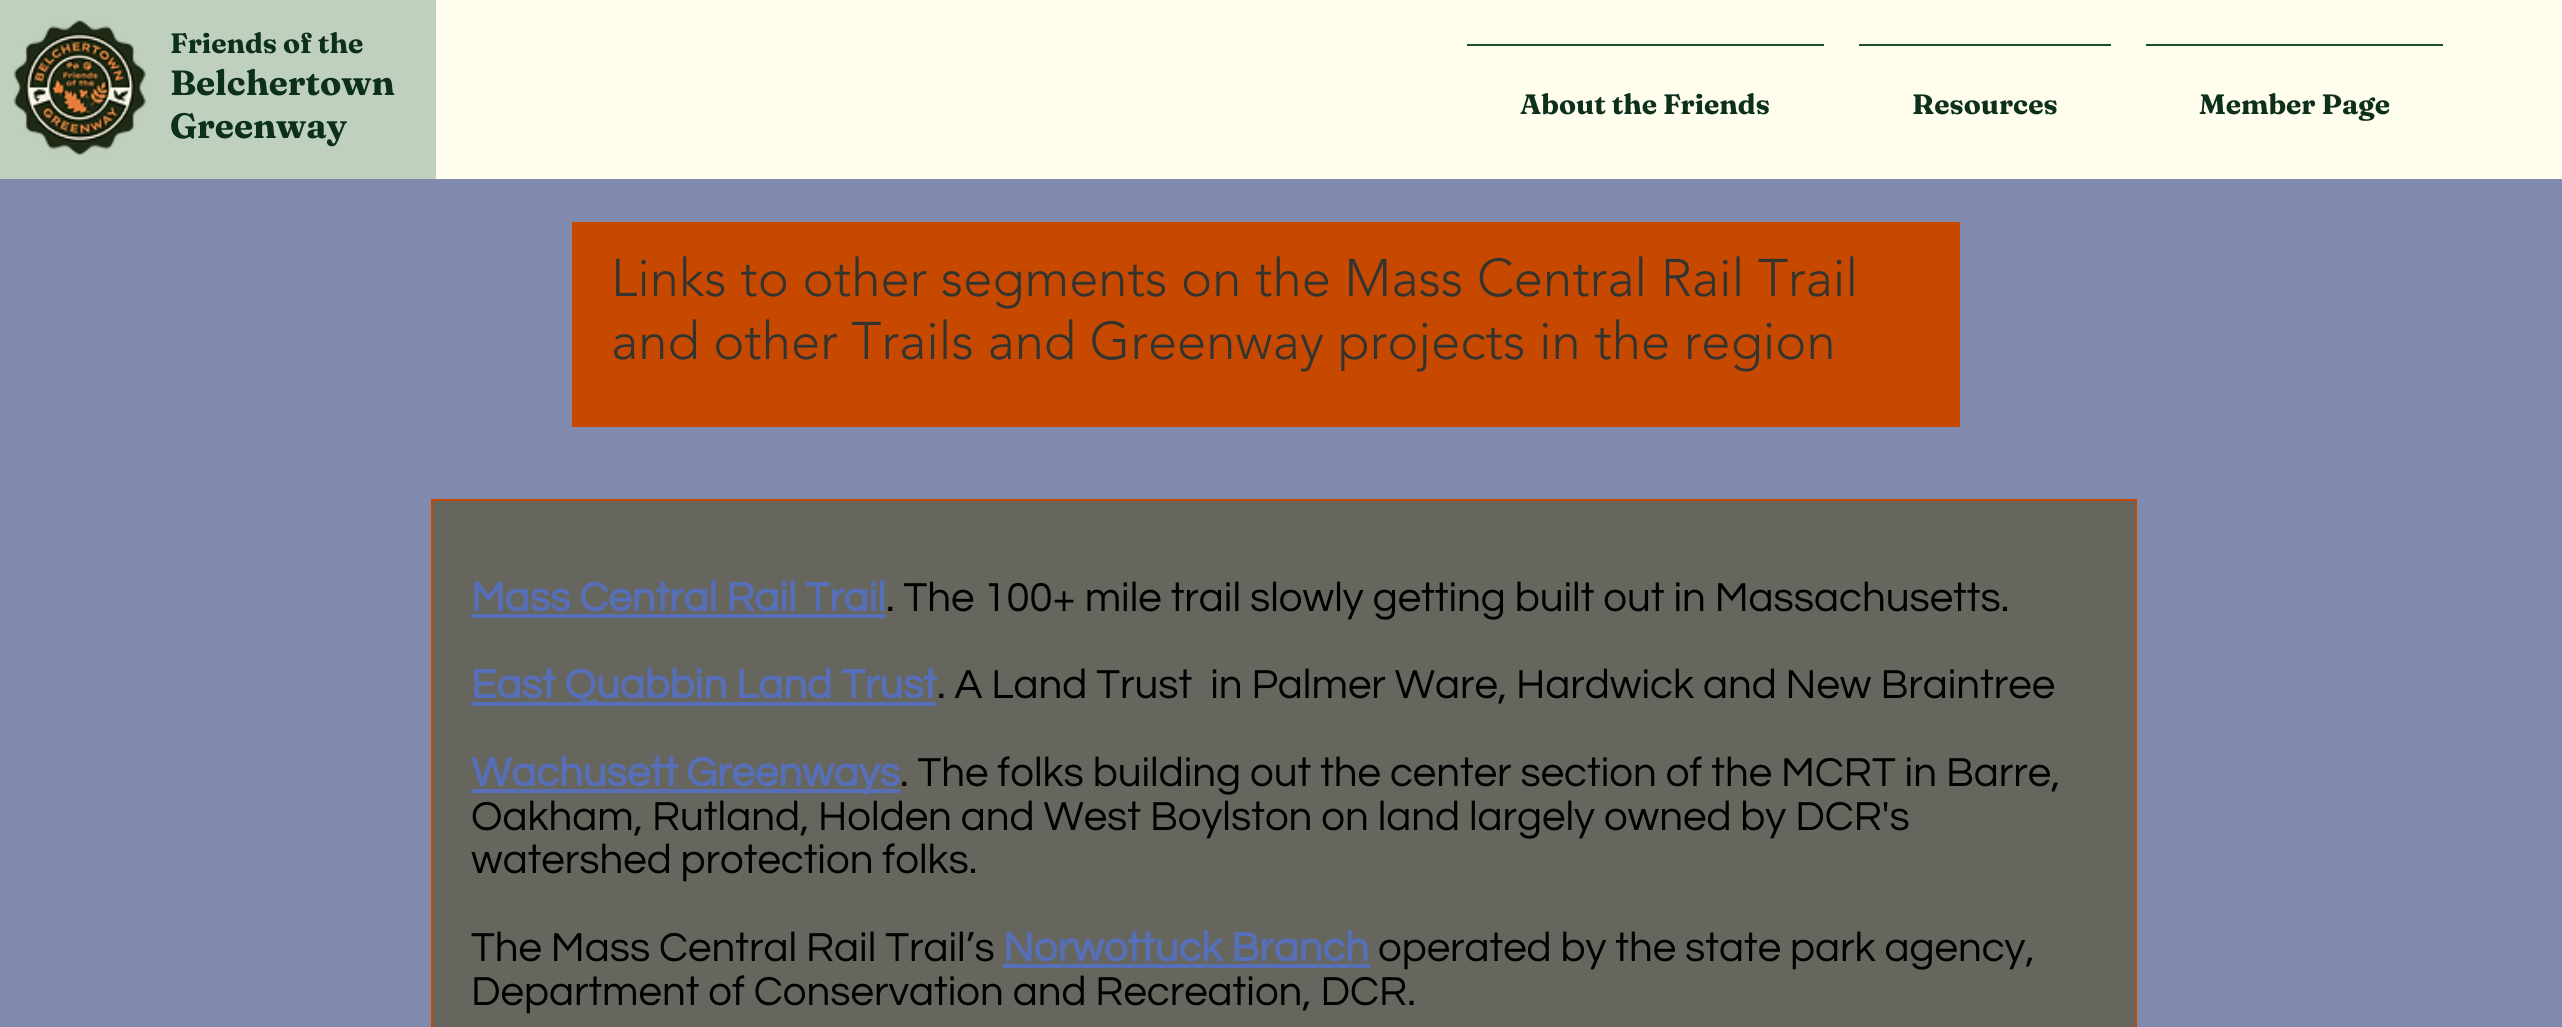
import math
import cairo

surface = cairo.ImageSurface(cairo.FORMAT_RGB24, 2562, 1027)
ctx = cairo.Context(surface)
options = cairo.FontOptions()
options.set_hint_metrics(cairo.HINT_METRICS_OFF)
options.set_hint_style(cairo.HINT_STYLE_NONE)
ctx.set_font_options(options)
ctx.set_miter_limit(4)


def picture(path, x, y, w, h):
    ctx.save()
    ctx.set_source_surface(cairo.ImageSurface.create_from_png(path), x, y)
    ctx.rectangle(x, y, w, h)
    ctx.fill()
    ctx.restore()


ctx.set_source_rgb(0.498, 0.541, 0.682)
ctx.paint()
ctx.set_source_rgb(1, 0.992, 0.925)
ctx.rectangle(436, 0, 2126, 179)
ctx.fill()
ctx.set_source_rgb(0.749, 0.816, 0.745)
ctx.rectangle(0, 0, 436, 179)
ctx.fill()
picture("img1.png", 13, 19, 133, 137)
ctx.select_font_face("Fraunces", cairo.FONT_SLANT_NORMAL, cairo.FONT_WEIGHT_BOLD)
ctx.set_font_size(28)
ctx.set_source_rgb(0.051, 0.188, 0.114)
ctx.move_to(170, 53)
ctx.show_text("Friends of the")
ctx.set_font_size(35)
ctx.move_to(170, 95)
ctx.show_text("Belchertown")
ctx.move_to(170, 138)
ctx.show_text("Greenway")
ctx.set_source_rgb(0.094, 0.31, 0.18)
ctx.rectangle(1467, 44, 357, 2)
ctx.fill()
ctx.set_font_size(28)
ctx.set_source_rgb(0.051, 0.188, 0.114)
ctx.move_to(1520, 114)
ctx.show_text("About the Friends")
ctx.set_source_rgb(0.094, 0.31, 0.18)
ctx.rectangle(1859, 44, 252, 2)
ctx.fill()
ctx.set_source_rgb(0.051, 0.188, 0.114)
ctx.move_to(1912, 114)
ctx.show_text("Resources")
ctx.set_source_rgb(0.094, 0.31, 0.18)
ctx.rectangle(2146, 44, 297, 2)
ctx.fill()
ctx.set_source_rgb(0.051, 0.188, 0.114)
ctx.move_to(2199, 114)
ctx.show_text("Member Page")
ctx.set_source_rgb(0.78, 0.286, 0)
ctx.rectangle(572, 222, 1388, 205)
ctx.fill()
ctx.select_font_face("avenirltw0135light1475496 Light")
ctx.set_font_size(52.5)
ctx.set_source_rgb(0.2, 0.2, 0.184)
ctx.move_to(611, 296)
ctx.show_text("Links to other segments on the Mass Central Rail Trail")
ctx.move_to(611, 359)
ctx.show_text("and other Trails and Greenway projects in the region")
ctx.set_source_rgb(0.4, 0.4, 0.369)
ctx.rectangle(432, 500, 1704, 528)
ctx.fill_preserve()
ctx.set_source_rgb(0.78, 0.286, 0)
ctx.stroke()
ctx.select_font_face("Questrial", cairo.FONT_SLANT_NORMAL, cairo.FONT_WEIGHT_BOLD)
ctx.set_font_size(42)
ctx.set_source_rgb(0.337, 0.435, 0.722)
ctx.move_to(471, 611)
ctx.show_text("Mass Central Rail Trail")
ctx.select_font_face("Questrial")
ctx.set_source_rgb(0, 0, 0)
ctx.move_to(886, 611)
ctx.show_text(". The 100+ mile trail slowly getting built out in Massachusetts.")
ctx.set_source_rgb(0.337, 0.435, 0.722)
ctx.rectangle(471, 614, 415, 4)
ctx.fill()
ctx.rectangle(471, 702, 465, 4)
ctx.fill()
ctx.select_font_face("Questrial", cairo.FONT_SLANT_NORMAL, cairo.FONT_WEIGHT_BOLD)
ctx.move_to(471, 698)
ctx.show_text("East Quabbin Land Trust")
ctx.select_font_face("Questrial")
ctx.set_source_rgb(0, 0, 0)
ctx.move_to(937, 698)
ctx.show_text(". A Land Trust  in Palmer Ware, Hardwick and New Braintree")
ctx.set_source_rgb(0.337, 0.435, 0.722)
ctx.rectangle(471, 789, 429, 4)
ctx.fill()
ctx.select_font_face("Questrial", cairo.FONT_SLANT_NORMAL, cairo.FONT_WEIGHT_BOLD)
ctx.move_to(471, 786)
ctx.show_text("Wachusett Greenways")
ctx.select_font_face("Questrial")
ctx.set_source_rgb(0, 0, 0)
ctx.move_to(900, 786)
ctx.show_text(". The folks building out the center section of the MCRT in Barre,")
ctx.move_to(471, 830)
ctx.show_text("Oakham, Rutland, Holden and West Boylston on land largely owned by DCR's")
ctx.move_to(471, 873)
ctx.show_text("watershed protection folks.")
ctx.move_to(471, 961)
ctx.show_text("The Mass Central Rail Trail’s")
ctx.select_font_face("Questrial", cairo.FONT_SLANT_NORMAL, cairo.FONT_WEIGHT_BOLD)
ctx.set_source_rgb(0.337, 0.435, 0.722)
ctx.move_to(1003, 961)
ctx.show_text("Norwottuck Branch")
ctx.rectangle(1003, 964, 367, 4)
ctx.fill()
ctx.select_font_face("Questrial")
ctx.set_source_rgb(0, 0, 0)
ctx.move_to(1378, 961)
ctx.show_text("operated by the state park agency,")
ctx.move_to(471, 1005)
ctx.show_text("Department of Conservation and Recreation, DCR.")
surface.write_to_png("page.png")
